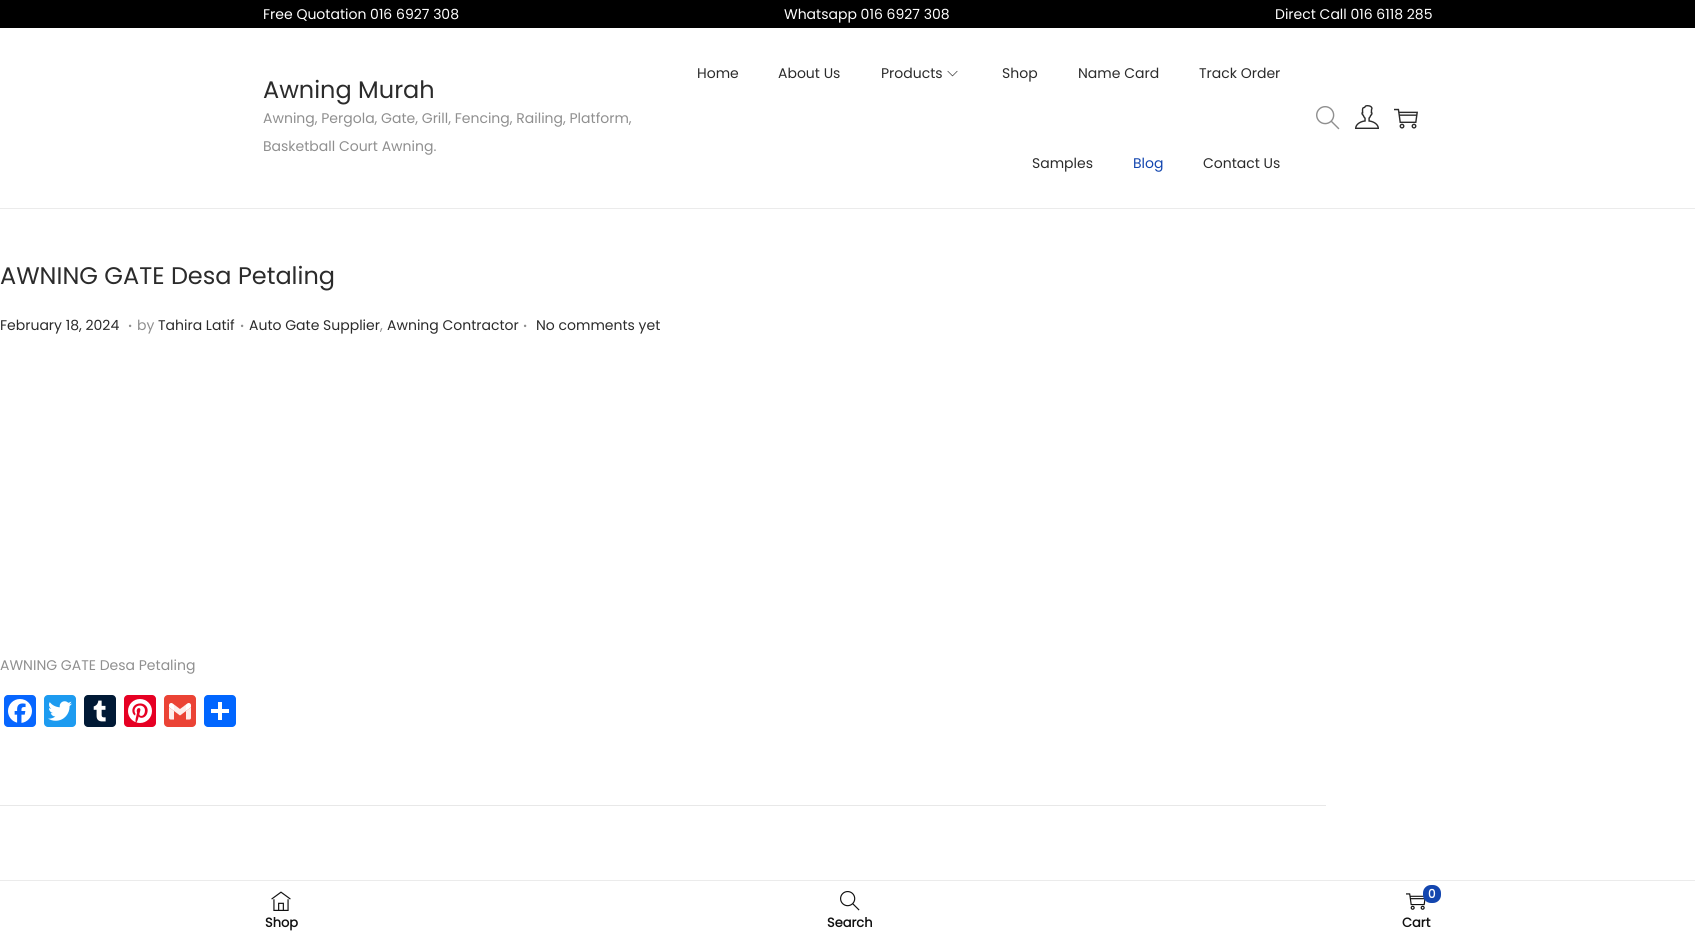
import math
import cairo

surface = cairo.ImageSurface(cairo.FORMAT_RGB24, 1695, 939)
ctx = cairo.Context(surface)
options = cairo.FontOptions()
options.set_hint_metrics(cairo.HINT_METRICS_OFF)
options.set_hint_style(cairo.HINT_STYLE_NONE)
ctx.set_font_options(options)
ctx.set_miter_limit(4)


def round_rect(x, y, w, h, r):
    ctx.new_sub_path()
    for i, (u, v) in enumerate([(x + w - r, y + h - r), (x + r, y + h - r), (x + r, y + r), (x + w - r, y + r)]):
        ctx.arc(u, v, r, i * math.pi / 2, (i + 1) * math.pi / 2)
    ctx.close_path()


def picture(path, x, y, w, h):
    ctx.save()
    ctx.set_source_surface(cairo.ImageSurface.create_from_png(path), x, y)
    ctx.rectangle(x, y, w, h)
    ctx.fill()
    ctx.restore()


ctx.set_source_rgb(1, 1, 1)
ctx.paint()
ctx.set_source_rgb(0, 0, 0)
ctx.rectangle(0, 0, 1695, 28)
ctx.fill()
ctx.select_font_face("Poppins")
ctx.set_font_size(14)
ctx.set_source_rgb(1, 1, 1)
ctx.move_to(263, 19)
ctx.show_text("Free Quotation 016 6927 308")
ctx.move_to(784, 19)
ctx.show_text("Whatsapp 016 6927 308")
ctx.move_to(1275, 19)
ctx.show_text("Direct Call 016 6118 285")
ctx.set_source_rgb(0.918, 0.918, 0.918)
ctx.rectangle(0, 208, 1695, 1)
ctx.fill()
ctx.set_font_size(24)
ctx.set_source_rgb(0.169, 0.169, 0.169)
ctx.move_to(263, 98)
ctx.show_text("Awning Murah")
ctx.set_font_size(14)
ctx.set_source_rgb(0.561, 0.561, 0.561)
ctx.move_to(263, 123)
ctx.show_text("Awning, Pergola, Gate, Grill, Fencing, Railing, Platform,")
ctx.move_to(263, 151)
ctx.show_text("Basketball Court Awning.")
ctx.set_source_rgb(0.169, 0.169, 0.169)
ctx.move_to(697, 78)
ctx.show_text("Home")
ctx.move_to(778, 78)
ctx.show_text("About Us")
ctx.move_to(881, 78)
ctx.show_text("Products")
picture("img1.png", 947, 70, 11, 7)
ctx.move_to(1002, 78)
ctx.show_text("Shop")
ctx.move_to(1078, 78)
ctx.show_text("Name Card")
ctx.move_to(1199, 78)
ctx.show_text("Track Order")
ctx.move_to(1032, 168)
ctx.show_text("Samples")
ctx.set_source_rgb(0.075, 0.275, 0.686)
ctx.move_to(1133, 168)
ctx.show_text("Blog")
ctx.set_source_rgb(0.169, 0.169, 0.169)
ctx.move_to(1203, 168)
ctx.show_text("Contact Us")
picture("img2.png", 1316, 106, 24, 24)
picture("img3.png", 1355, 105, 24, 24)
picture("img4.png", 1394, 108, 24, 21)
ctx.set_font_size(24)
ctx.move_to(0, 284)
ctx.show_text("AWNING GATE Desa Petaling")
ctx.set_font_size(14)
ctx.move_to(0, 330)
ctx.show_text("February 18, 2024")
ctx.set_font_size(20)
ctx.set_source_rgb(0.561, 0.561, 0.561)
ctx.move_to(128, 327)
ctx.show_text(".")
ctx.set_font_size(14)
ctx.move_to(137, 330)
ctx.show_text("by")
ctx.set_source_rgb(0.169, 0.169, 0.169)
ctx.move_to(158, 330)
ctx.show_text("Tahira Latif")
ctx.set_font_size(20)
ctx.set_source_rgb(0.561, 0.561, 0.561)
ctx.move_to(240, 327)
ctx.show_text(".")
ctx.set_font_size(14)
ctx.set_source_rgb(0.169, 0.169, 0.169)
ctx.move_to(249, 330)
ctx.show_text("Auto Gate Supplier")
ctx.move_to(387, 330)
ctx.show_text("Awning Contractor")
ctx.set_font_size(20)
ctx.set_source_rgb(0.561, 0.561, 0.561)
ctx.move_to(523, 327)
ctx.show_text(".")
ctx.set_font_size(14)
ctx.set_source_rgb(0.169, 0.169, 0.169)
ctx.move_to(536, 330)
ctx.show_text("No comments yet")
ctx.set_source_rgb(0.561, 0.561, 0.561)
ctx.move_to(380, 330)
ctx.show_text(",")
ctx.move_to(0, 670)
ctx.show_text("AWNING GATE Desa Petaling")
ctx.set_source_rgb(0.031, 0.4, 1)
round_rect(4, 695, 32, 32, 4)
ctx.fill()
picture("img5.png", 8, 699, 24, 24)
ctx.set_source_rgb(0.114, 0.608, 0.941)
round_rect(44, 695, 32, 32, 4)
ctx.fill()
picture("img6.png", 48, 701, 24, 20)
ctx.set_source_rgb(0, 0.098, 0.208)
round_rect(84, 695, 32, 32, 4)
ctx.fill()
picture("img7.png", 93, 700, 13, 22)
ctx.set_source_rgb(0.902, 0, 0.137)
round_rect(124, 695, 32, 32, 4)
ctx.fill()
picture("img8.png", 128, 699, 24, 24)
ctx.set_source_rgb(0.918, 0.263, 0.208)
round_rect(164, 695, 32, 32, 4)
ctx.fill()
picture("img9.png", 169, 703, 22, 17)
ctx.set_source_rgb(0.004, 0.4, 1)
round_rect(204, 695, 32, 32, 4)
ctx.fill()
ctx.set_source_rgb(1, 1, 1)
ctx.rectangle(218, 702, 4, 18)
ctx.fill()
ctx.rectangle(211, 709, 18, 4)
ctx.fill()
ctx.set_source_rgb(0.91, 0.91, 0.91)
ctx.rectangle(0, 805, 1326, 1)
ctx.fill()
ctx.set_source_rgb(0.918, 0.918, 0.918)
ctx.rectangle(0, 880, 1695, 1)
ctx.fill()
picture("img10.png", 271, 891, 20, 20)
ctx.select_font_face("Poppins", cairo.FONT_SLANT_NORMAL, cairo.FONT_WEIGHT_BOLD)
ctx.set_font_size(13)
ctx.set_source_rgb(0.067, 0.067, 0.067)
ctx.move_to(265, 927)
ctx.show_text("Shop")
picture("img11.png", 840, 891, 20, 20)
ctx.move_to(827, 927)
ctx.show_text("Search")
picture("img12.png", 1406, 893, 20, 17)
ctx.set_source_rgb(0.075, 0.275, 0.686)
round_rect(1423, 885, 18, 18, 8)
ctx.fill()
ctx.set_font_size(12)
ctx.set_source_rgb(1, 1, 1)
ctx.move_to(1428, 898)
ctx.show_text("0")
ctx.set_font_size(13)
ctx.set_source_rgb(0.067, 0.067, 0.067)
ctx.move_to(1402, 927)
ctx.show_text("Cart")
surface.write_to_png("page.png")
